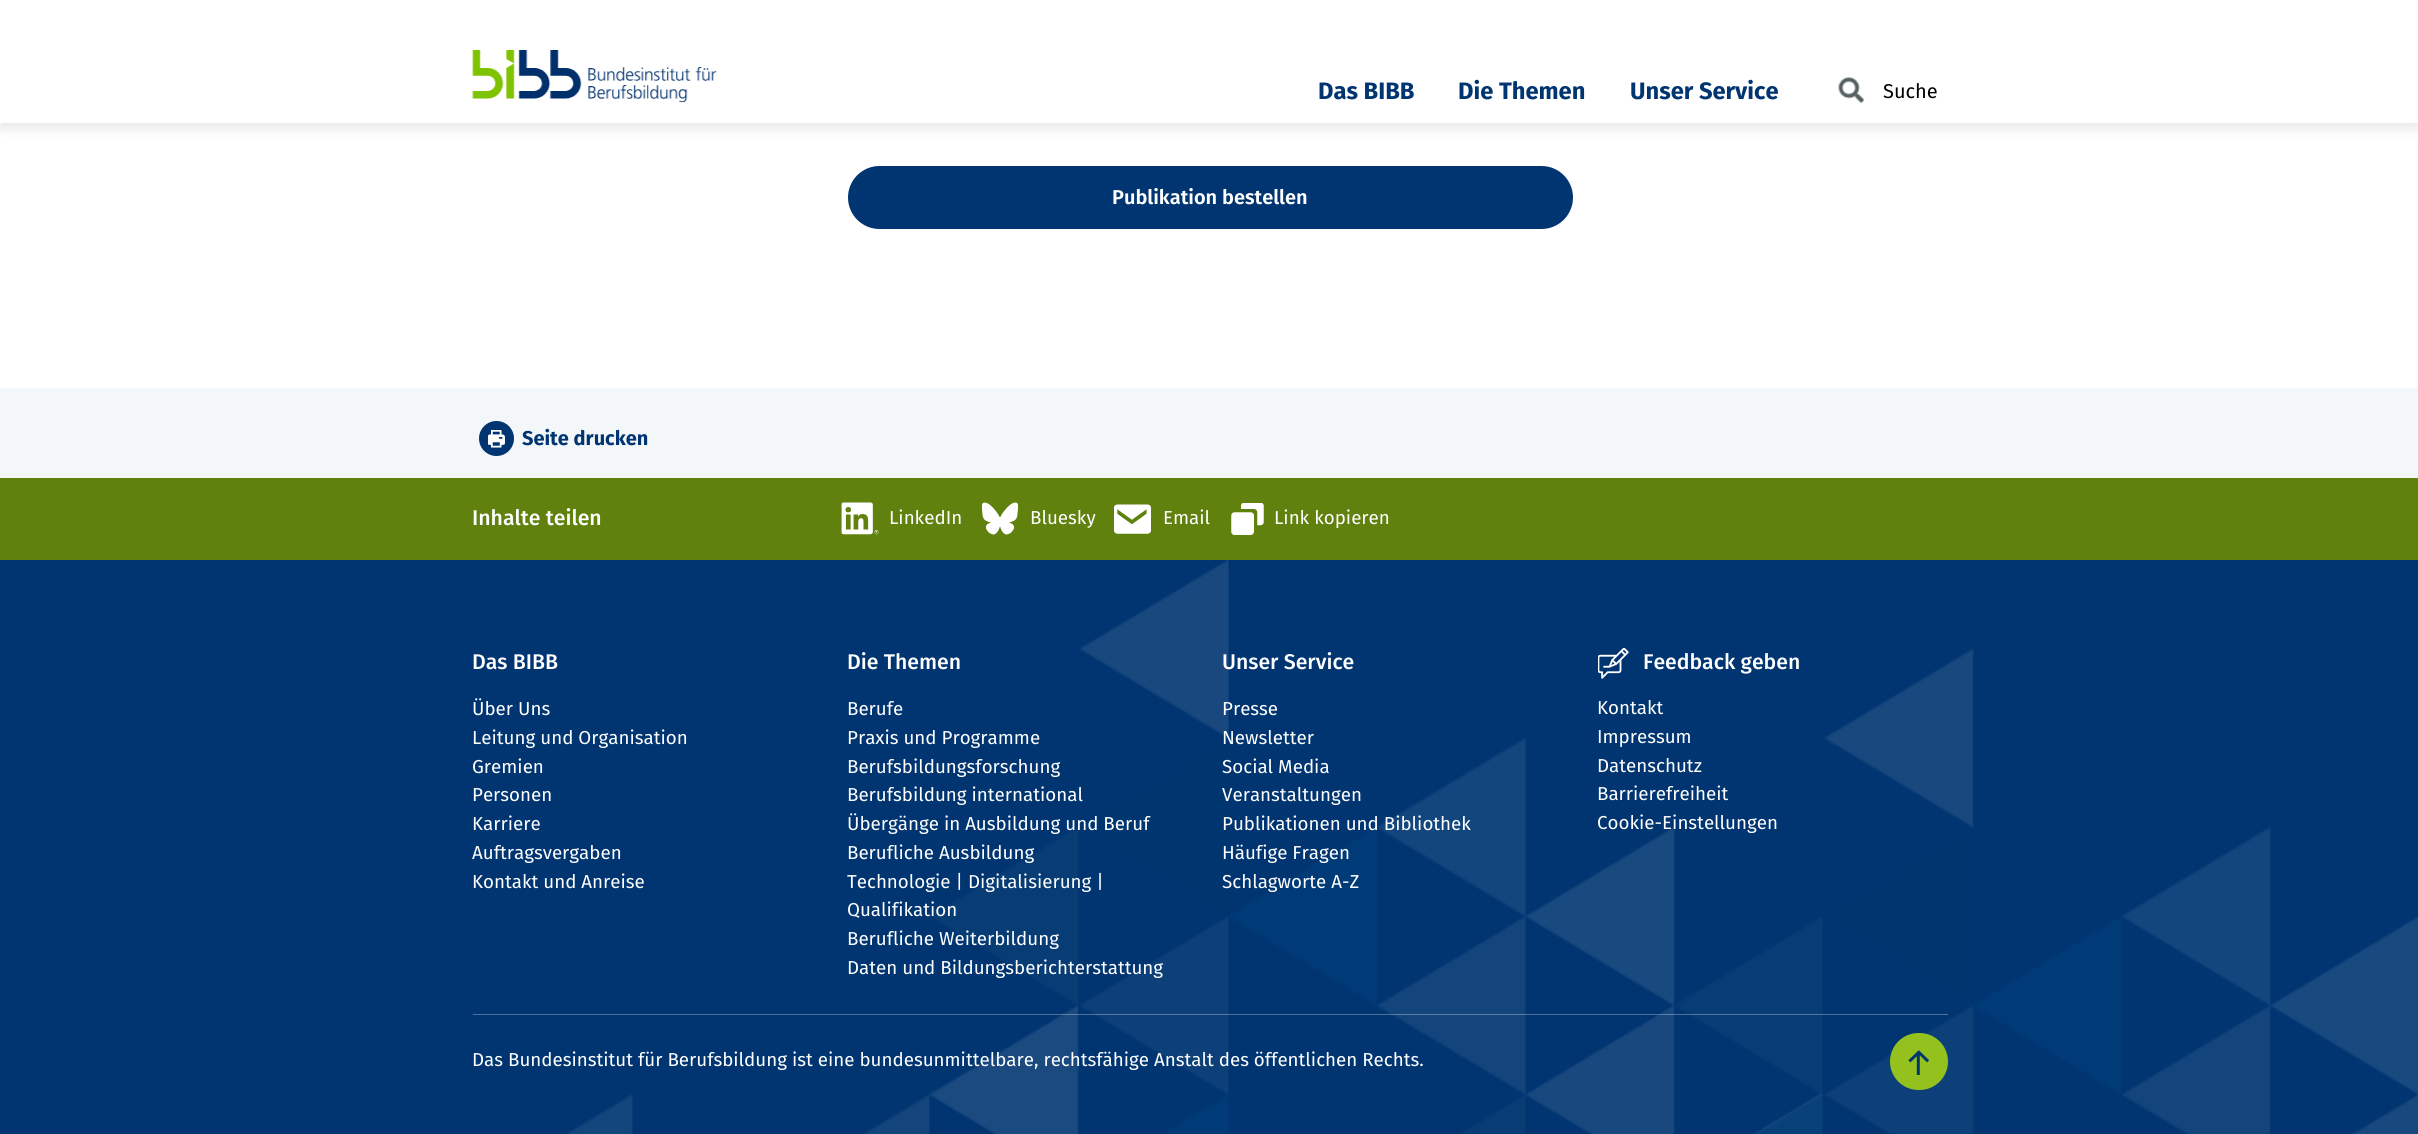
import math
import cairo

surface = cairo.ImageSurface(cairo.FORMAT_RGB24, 2418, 1134)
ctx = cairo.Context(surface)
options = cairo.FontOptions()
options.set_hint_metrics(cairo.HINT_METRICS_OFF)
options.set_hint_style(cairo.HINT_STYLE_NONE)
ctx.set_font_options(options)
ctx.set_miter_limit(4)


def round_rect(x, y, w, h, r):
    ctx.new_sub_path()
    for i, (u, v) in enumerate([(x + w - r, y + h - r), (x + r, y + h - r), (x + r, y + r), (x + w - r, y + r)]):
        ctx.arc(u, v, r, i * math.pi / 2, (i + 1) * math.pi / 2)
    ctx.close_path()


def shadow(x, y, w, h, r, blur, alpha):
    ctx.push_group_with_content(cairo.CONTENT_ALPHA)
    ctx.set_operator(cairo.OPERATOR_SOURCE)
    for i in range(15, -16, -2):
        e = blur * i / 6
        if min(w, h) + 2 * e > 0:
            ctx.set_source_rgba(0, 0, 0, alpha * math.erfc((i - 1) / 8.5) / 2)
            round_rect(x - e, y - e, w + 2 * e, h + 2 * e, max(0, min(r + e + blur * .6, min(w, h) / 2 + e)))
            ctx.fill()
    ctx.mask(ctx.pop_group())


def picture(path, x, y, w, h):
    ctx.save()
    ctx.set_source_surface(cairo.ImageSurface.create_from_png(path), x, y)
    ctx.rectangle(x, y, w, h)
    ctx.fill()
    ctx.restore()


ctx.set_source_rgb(1, 1, 1)
ctx.paint()
ctx.set_source_rgb(0.502, 0.502, 0.502)
shadow(0, 5, 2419, 123, 0, 6, 0.2)
ctx.set_source_rgb(1, 1, 1)
ctx.rectangle(0, 0, 2418, 123)
ctx.fill()
picture("img1.png", 472, 50, 245, 53)
ctx.select_font_face("Fira Sans", cairo.FONT_SLANT_NORMAL, cairo.FONT_WEIGHT_BOLD)
ctx.set_font_size(23.75)
ctx.set_source_rgb(0, 0.208, 0.443)
ctx.move_to(1318, 99)
ctx.show_text("Das BIBB")
ctx.move_to(1458, 99)
ctx.show_text("Die Themen")
ctx.move_to(1630, 99)
ctx.show_text("Unser Service")
picture("img2.png", 1838, 77, 27, 27)
ctx.select_font_face("Fira Sans")
ctx.set_font_size(20)
ctx.set_source_rgb(0, 0, 0)
ctx.move_to(1883, 98)
ctx.show_text("Suche")
ctx.set_source_rgb(0, 0.208, 0.443)
round_rect(850, 168, 721, 59, 29.5)
ctx.fill_preserve()
ctx.set_line_width(4)
ctx.stroke()
ctx.select_font_face("Fira Sans SemiBold")
ctx.set_source_rgb(1, 1, 1)
ctx.move_to(1112, 204)
ctx.show_text("Publikation bestellen")
ctx.set_source_rgb(0.953, 0.965, 0.973)
ctx.rectangle(0, 388, 2418, 90)
ctx.fill()
ctx.set_source_rgb(0, 0.208, 0.443)
ctx.arc(496.5, 438.5, 17.5, 0, 2 * math.pi)
ctx.fill()
ctx.select_font_face("Fira Sans", cairo.FONT_SLANT_NORMAL, cairo.FONT_WEIGHT_BOLD)
ctx.move_to(522, 445)
ctx.show_text("Seite drucken")
picture("img3.png", 488, 430, 17, 18)
ctx.set_source_rgb(0.376, 0.506, 0.055)
ctx.rectangle(0, 478, 2418, 82)
ctx.fill()
ctx.select_font_face("Fira Sans Medium")
ctx.set_font_size(21.25)
ctx.set_source_rgb(1, 1, 1)
ctx.move_to(472, 525)
ctx.show_text("Inhalte teilen")
picture("img4.png", 841, 502, 38, 33)
ctx.select_font_face("Fira Sans")
ctx.set_font_size(18.75)
ctx.move_to(889, 524)
ctx.show_text("LinkedIn")
picture("img5.png", 981, 502, 38, 33)
ctx.move_to(1030, 524)
ctx.show_text("Bluesky")
picture("img6.png", 1114, 504, 37, 30)
ctx.move_to(1163, 524)
ctx.show_text("Email")
picture("img7.png", 1231, 503, 33, 32)
ctx.move_to(1274, 524)
ctx.show_text("Link kopieren")
ctx.set_source_rgb(0, 0.208, 0.443)
ctx.rectangle(0, 560, 2418, 574)
ctx.fill()
picture("img8.png", 566, 560, 1852, 574)
ctx.select_font_face("Fira Sans Medium")
ctx.set_font_size(21.25)
ctx.set_source_rgb(1, 1, 1)
ctx.move_to(472, 669)
ctx.show_text("Das BIBB")
ctx.select_font_face("Fira Sans")
ctx.set_font_size(18.75)
ctx.move_to(472, 715)
ctx.show_text("Über Uns")
ctx.move_to(472, 744)
ctx.show_text("Leitung und Organisation")
ctx.move_to(472, 773)
ctx.show_text("Gremien")
ctx.move_to(472, 801)
ctx.show_text("Personen")
ctx.move_to(472, 830)
ctx.show_text("Karriere")
ctx.move_to(472, 859)
ctx.show_text("Auftragsvergaben")
ctx.move_to(472, 888)
ctx.show_text("Kontakt und Anreise")
ctx.select_font_face("Fira Sans Medium")
ctx.set_font_size(21.25)
ctx.move_to(847, 669)
ctx.show_text("Die Themen")
ctx.select_font_face("Fira Sans")
ctx.set_font_size(18.75)
ctx.move_to(847, 715)
ctx.show_text("Berufe")
ctx.move_to(847, 744)
ctx.show_text("Praxis und Programme")
ctx.move_to(847, 773)
ctx.show_text("Berufsbildungsforschung")
ctx.move_to(847, 801)
ctx.show_text("Berufsbildung international")
ctx.move_to(847, 830)
ctx.show_text("Übergänge in Ausbildung und Beruf")
ctx.move_to(847, 859)
ctx.show_text("Berufliche Ausbildung")
ctx.move_to(847, 888)
ctx.show_text("Technologie | Digitalisierung |")
ctx.move_to(847, 916)
ctx.show_text("Qualifikation")
ctx.move_to(847, 945)
ctx.show_text("Berufliche Weiterbildung")
ctx.move_to(847, 974)
ctx.show_text("Daten und Bildungsberichterstattung")
ctx.select_font_face("Fira Sans Medium")
ctx.set_font_size(21.25)
ctx.move_to(1222, 669)
ctx.show_text("Unser Service")
ctx.select_font_face("Fira Sans")
ctx.set_font_size(18.75)
ctx.move_to(1222, 715)
ctx.show_text("Presse")
ctx.move_to(1222, 744)
ctx.show_text("Newsletter")
ctx.move_to(1222, 773)
ctx.show_text("Social Media")
ctx.move_to(1222, 801)
ctx.show_text("Veranstaltungen")
ctx.move_to(1222, 830)
ctx.show_text("Publikationen und Bibliothek")
ctx.move_to(1222, 859)
ctx.show_text("Häufige Fragen")
ctx.move_to(1222, 888)
ctx.show_text("Schlagworte A-Z")
picture("img9.png", 1598, 648, 31, 31)
ctx.select_font_face("Fira Sans Medium")
ctx.set_font_size(21.25)
ctx.move_to(1643, 669)
ctx.show_text("Feedback geben")
ctx.select_font_face("Fira Sans")
ctx.set_font_size(18.75)
ctx.move_to(1597, 714)
ctx.show_text("Kontakt")
ctx.move_to(1597, 743)
ctx.show_text("Impressum")
ctx.move_to(1597, 772)
ctx.show_text("Datenschutz")
ctx.move_to(1597, 800)
ctx.show_text("Barrierefreiheit")
ctx.move_to(1597, 829)
ctx.show_text("Cookie-Einstellungen")
ctx.set_source_rgba(1, 1, 1, 0.3)
ctx.rectangle(473, 1014, 1475, 1)
ctx.fill()
ctx.set_source_rgb(1, 1, 1)
ctx.move_to(472, 1066)
ctx.show_text("Das Bundesinstitut für Berufsbildung ist eine bundesunmittelbare, rechtsfähige Anstalt des öffentlichen Rechts.")
ctx.set_source_rgb(0.584, 0.757, 0.122)
round_rect(1892, 1035, 54, 53, 26.5)
ctx.fill_preserve()
ctx.stroke()
picture("img10.png", 1908, 1050, 21, 25)
surface.write_to_png("page.png")
